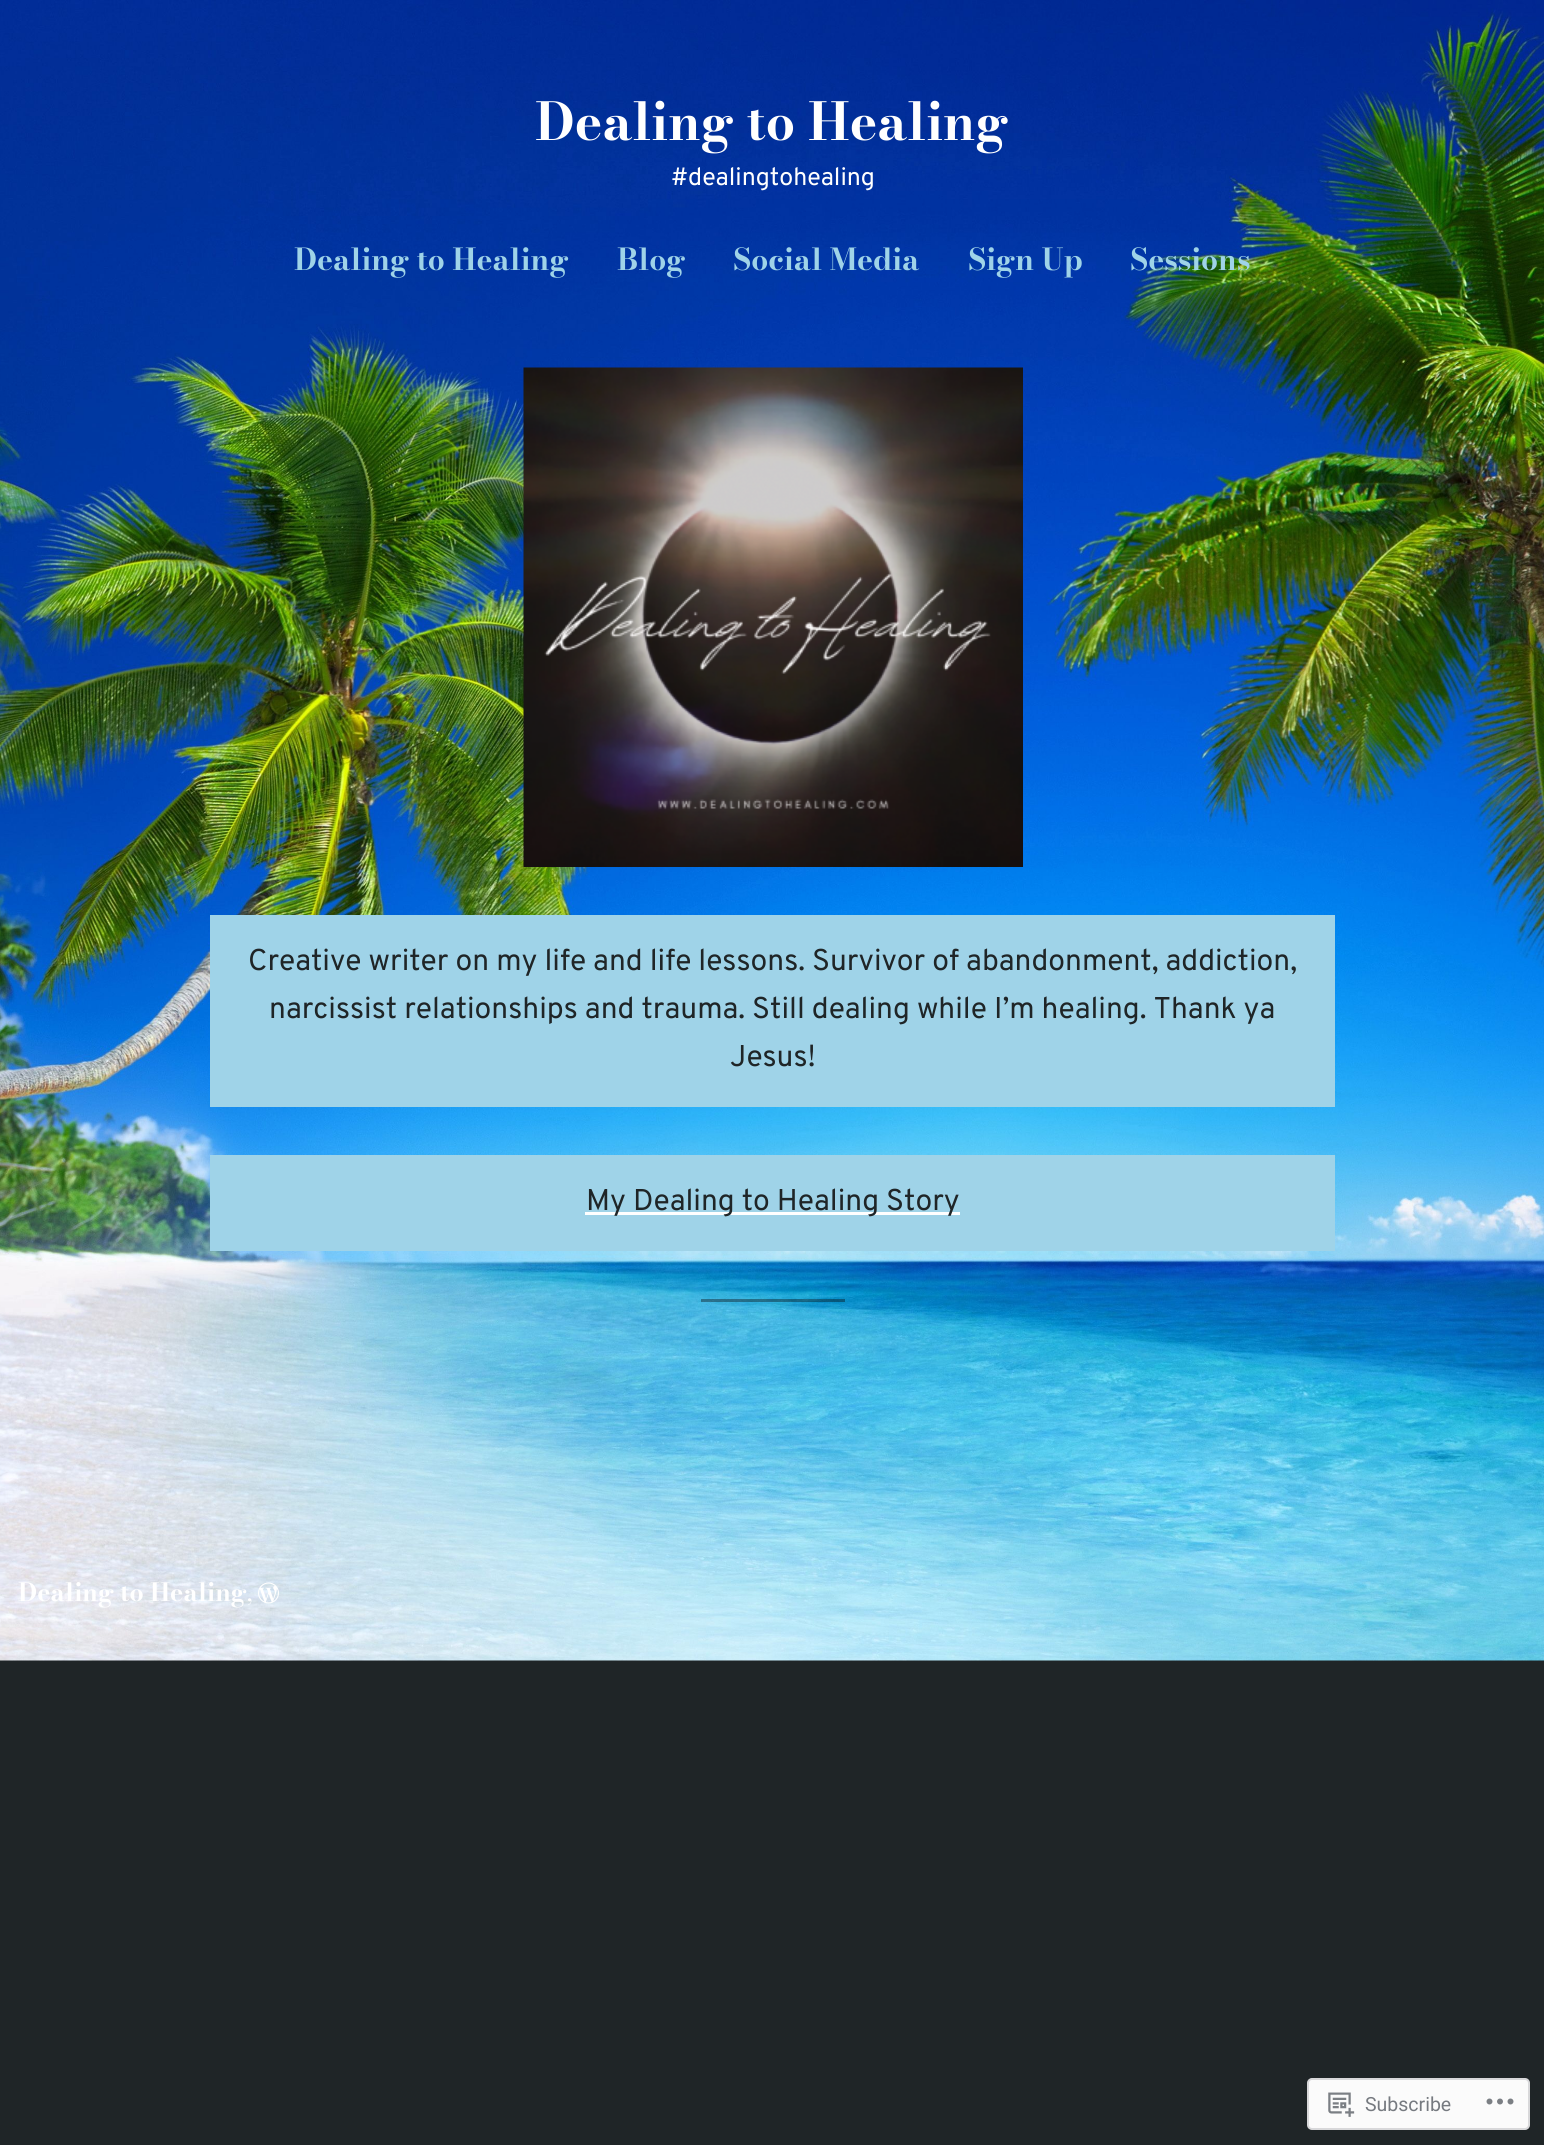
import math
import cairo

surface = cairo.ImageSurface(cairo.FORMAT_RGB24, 1544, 2145)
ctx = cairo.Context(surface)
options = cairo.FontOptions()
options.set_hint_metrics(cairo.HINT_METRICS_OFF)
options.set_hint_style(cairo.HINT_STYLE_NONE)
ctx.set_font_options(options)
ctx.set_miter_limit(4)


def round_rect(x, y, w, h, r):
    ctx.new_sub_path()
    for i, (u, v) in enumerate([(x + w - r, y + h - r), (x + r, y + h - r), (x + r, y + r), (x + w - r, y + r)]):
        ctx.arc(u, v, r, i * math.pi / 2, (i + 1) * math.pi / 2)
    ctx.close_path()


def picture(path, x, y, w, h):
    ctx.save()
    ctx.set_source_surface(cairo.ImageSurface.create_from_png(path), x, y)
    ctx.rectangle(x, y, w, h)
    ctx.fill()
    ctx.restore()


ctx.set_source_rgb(0.122, 0.145, 0.153)
ctx.paint()
picture("img1.png", 0, 0, 1544, 1661)
ctx.select_font_face("Bodoni Moda", cairo.FONT_SLANT_NORMAL, cairo.FONT_WEIGHT_BOLD)
ctx.set_font_size(51.75)
ctx.set_source_rgb(1, 1, 1)
ctx.move_to(535, 140)
ctx.show_text("Dealing to Healing")
ctx.select_font_face("Overpass")
ctx.set_font_size(25)
ctx.move_to(671, 185)
ctx.show_text("#dealingtohealing")
ctx.select_font_face("Bodoni Moda", cairo.FONT_SLANT_NORMAL, cairo.FONT_WEIGHT_BOLD)
ctx.set_font_size(30)
ctx.set_source_rgb(0.624, 0.827, 0.91)
ctx.move_to(294, 270)
ctx.show_text("Dealing to Healing")
ctx.move_to(617, 270)
ctx.show_text("Blog")
ctx.move_to(733, 270)
ctx.show_text("Social Media")
ctx.move_to(968, 270)
ctx.show_text("Sign Up")
ctx.move_to(1130, 270)
ctx.show_text("Sessions")
picture("img2.png", 523, 367, 500, 500)
ctx.rectangle(210, 915, 1125, 192)
ctx.fill()
ctx.select_font_face("Overpass")
ctx.set_source_rgb(0.122, 0.145, 0.153)
ctx.move_to(248, 970)
ctx.show_text("Creative writer on my life and life lessons. Survivor of abandonment, addiction,")
ctx.move_to(269, 1018)
ctx.show_text("narcissist relationships and trauma. Still dealing while I’m healing. Thank ya")
ctx.move_to(730, 1066)
ctx.show_text("Jesus!")
ctx.set_source_rgb(0.624, 0.827, 0.91)
ctx.rectangle(210, 1155, 1125, 96)
ctx.fill()
ctx.set_source_rgb(1, 1, 1)
ctx.rectangle(585, 1212, 375, 3)
ctx.fill()
ctx.set_source_rgb(0.122, 0.145, 0.153)
ctx.move_to(586, 1210)
ctx.show_text("My Dealing to Healing Story")
ctx.set_source_rgba(0.035, 0.039, 0.043, 0.4)
ctx.rectangle(701, 1299, 144, 3)
ctx.fill()
ctx.select_font_face("Bodoni Moda", cairo.FONT_SLANT_NORMAL, cairo.FONT_WEIGHT_BOLD)
ctx.set_font_size(25)
ctx.set_source_rgb(1, 1, 1)
ctx.move_to(18, 1601)
ctx.show_text("Dealing to Healing")
ctx.select_font_face("Bodoni Moda")
ctx.move_to(247, 1601)
ctx.show_text(",")
picture("img3.png", 258, 1582, 21, 22)
ctx.set_source_rgb(0.984, 0.984, 0.984)
round_rect(1308, 2079, 221, 50, 4)
ctx.fill_preserve()
ctx.set_source_rgb(0.847, 0.847, 0.855)
ctx.stroke()
picture("img4.png", 1328, 2092, 27, 25)
ctx.select_font_face("Roboto")
ctx.set_font_size(19.5)
ctx.set_source_rgb(0.463, 0.478, 0.502)
ctx.move_to(1365, 2111)
ctx.show_text("Subscribe")
picture("img5.png", 1486, 2098, 28, 7)
surface.write_to_png("page.png")
